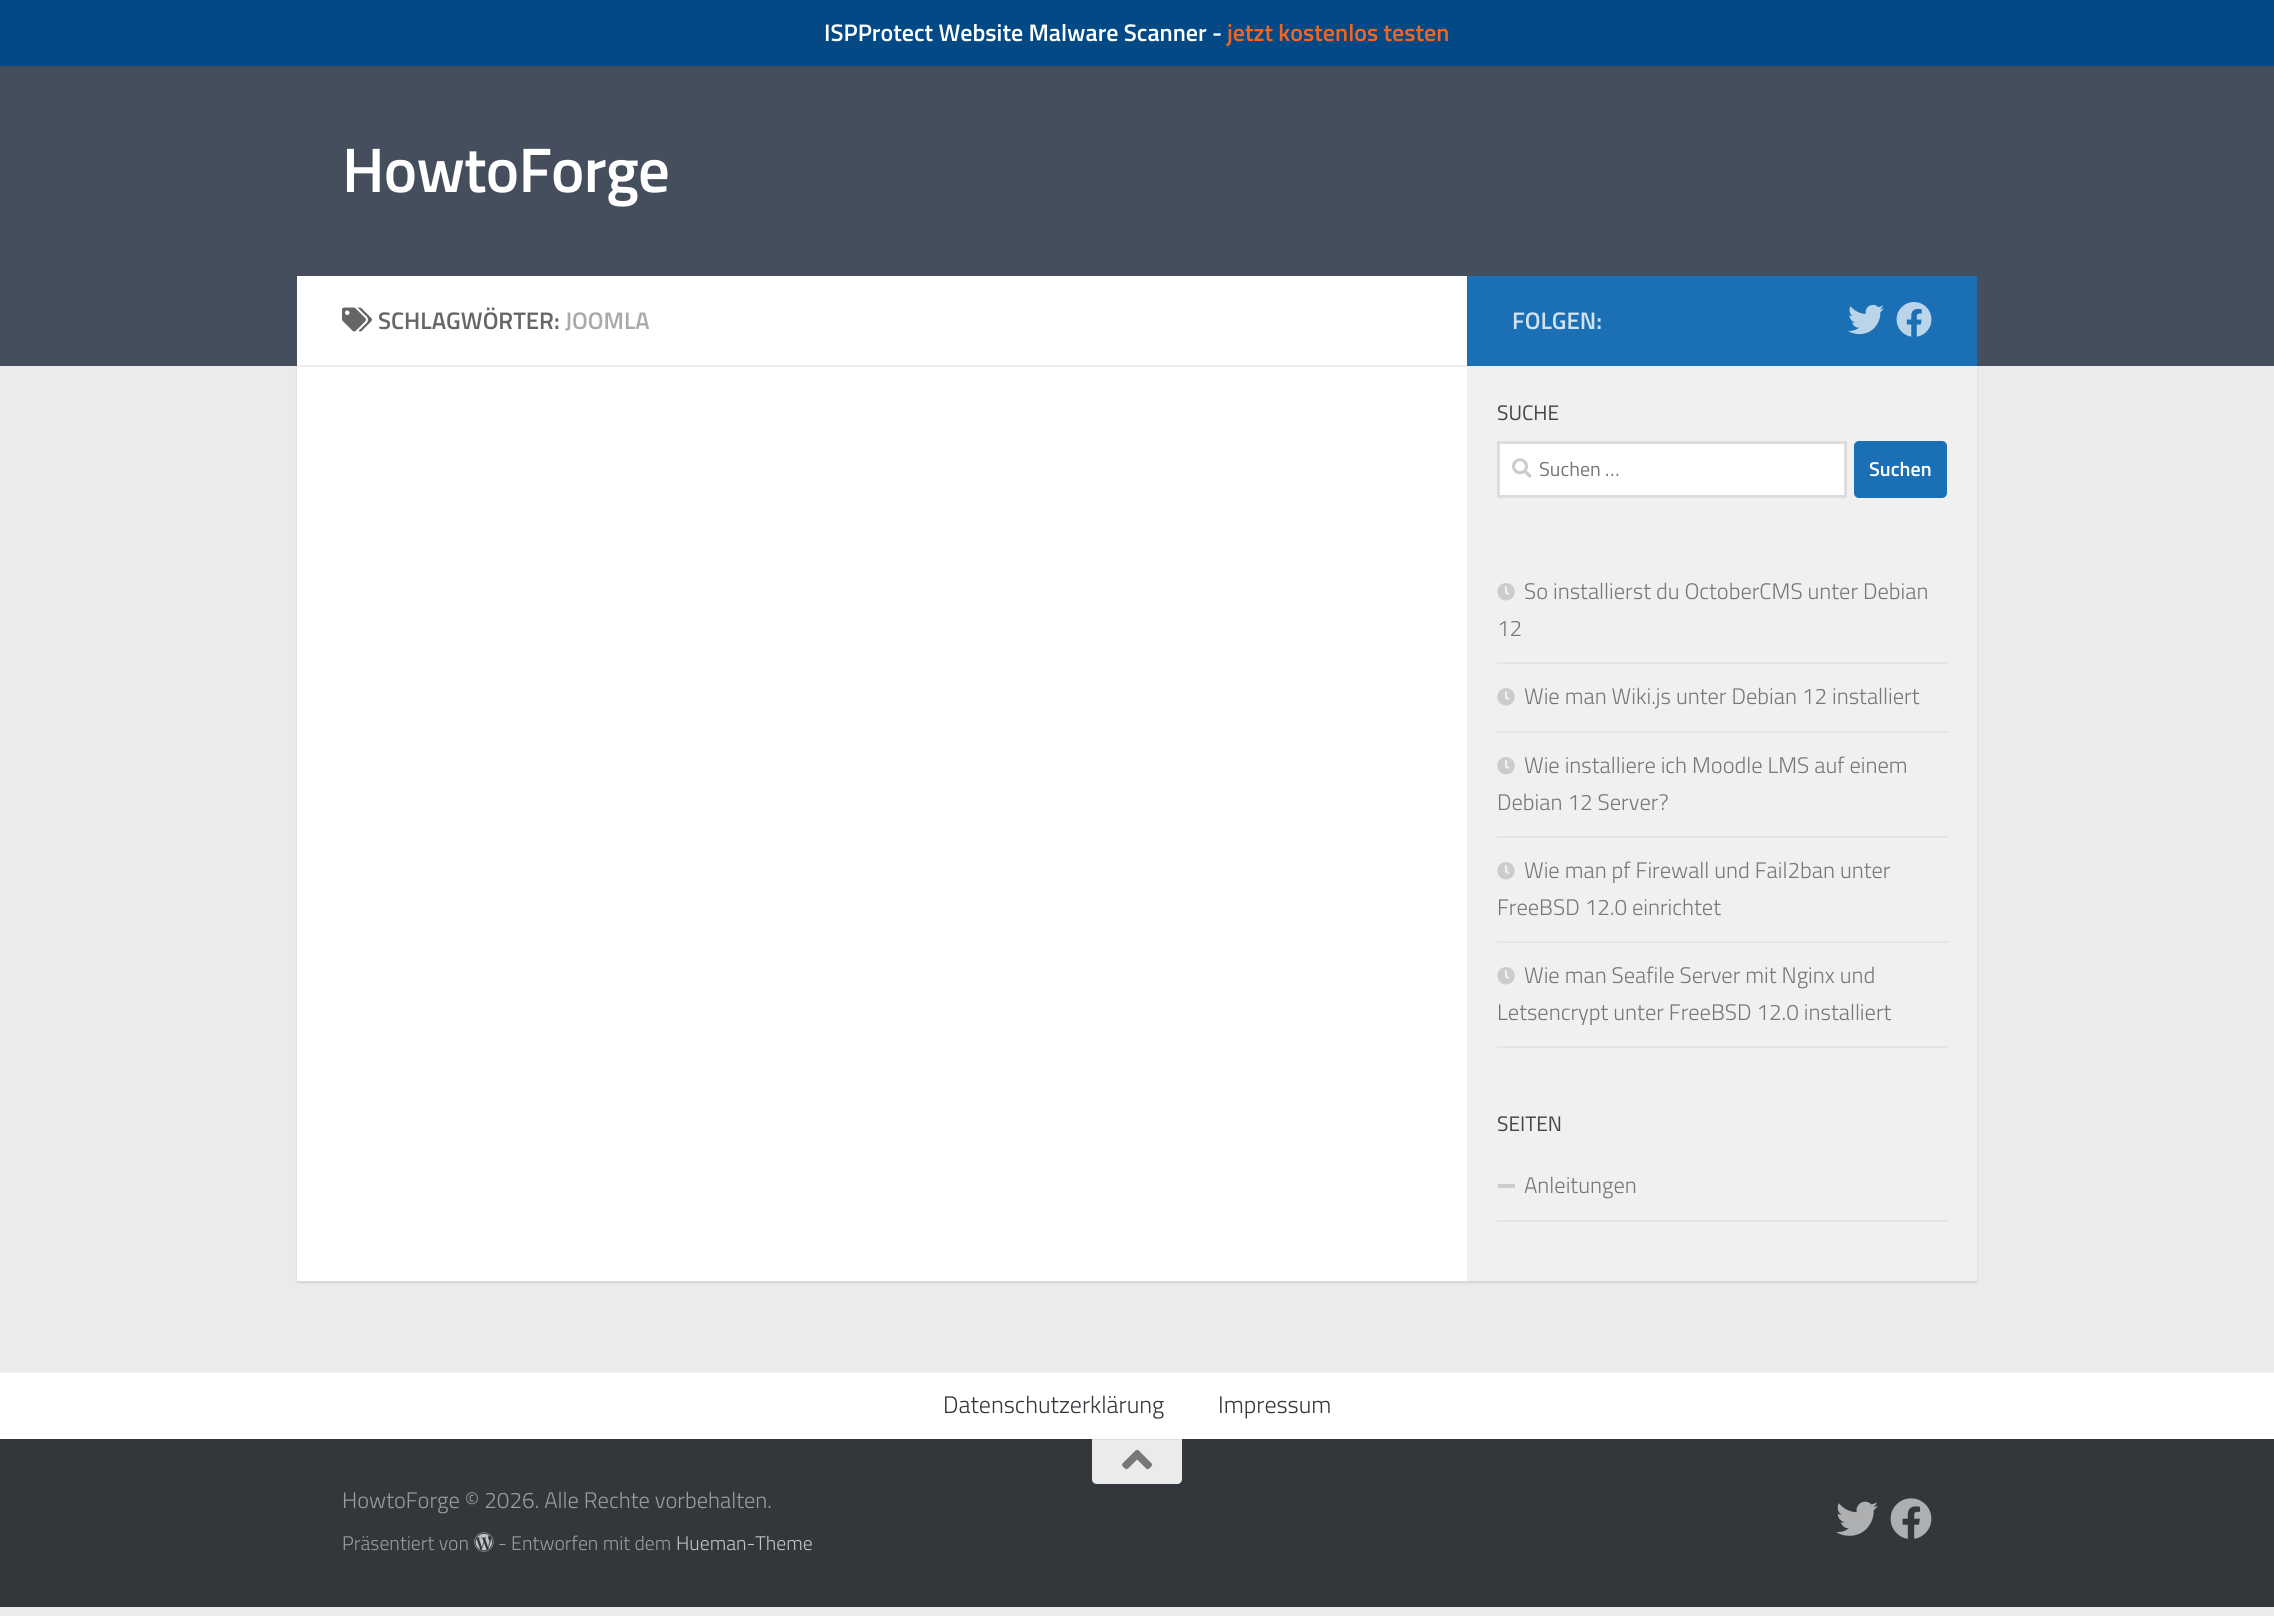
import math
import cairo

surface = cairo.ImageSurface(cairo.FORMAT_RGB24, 2274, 1616)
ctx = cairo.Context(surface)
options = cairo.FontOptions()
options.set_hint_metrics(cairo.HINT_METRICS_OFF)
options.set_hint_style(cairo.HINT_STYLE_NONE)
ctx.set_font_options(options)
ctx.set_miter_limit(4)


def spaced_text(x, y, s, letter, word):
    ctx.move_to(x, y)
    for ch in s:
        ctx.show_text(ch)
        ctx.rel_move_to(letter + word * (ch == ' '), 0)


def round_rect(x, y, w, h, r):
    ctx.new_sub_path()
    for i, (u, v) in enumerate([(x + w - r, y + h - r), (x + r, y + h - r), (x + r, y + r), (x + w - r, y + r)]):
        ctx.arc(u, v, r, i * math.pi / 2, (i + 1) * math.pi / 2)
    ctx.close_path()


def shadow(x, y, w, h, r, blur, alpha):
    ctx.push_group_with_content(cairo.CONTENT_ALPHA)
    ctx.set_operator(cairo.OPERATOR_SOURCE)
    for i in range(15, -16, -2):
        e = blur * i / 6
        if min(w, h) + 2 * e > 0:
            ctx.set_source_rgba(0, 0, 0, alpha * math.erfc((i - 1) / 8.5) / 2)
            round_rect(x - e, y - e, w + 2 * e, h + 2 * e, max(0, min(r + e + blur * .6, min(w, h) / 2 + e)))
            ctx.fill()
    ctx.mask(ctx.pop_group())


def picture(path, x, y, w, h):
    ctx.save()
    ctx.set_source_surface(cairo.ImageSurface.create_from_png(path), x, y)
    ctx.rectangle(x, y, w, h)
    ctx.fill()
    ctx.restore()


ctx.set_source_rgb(0.918, 0.918, 0.918)
ctx.paint()
ctx.set_source_rgb(0.008, 0.286, 0.522)
ctx.rectangle(0, 0, 2274, 66)
ctx.fill()
ctx.select_font_face("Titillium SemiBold")
ctx.set_font_size(24)
ctx.set_source_rgb(1, 1, 1)
ctx.move_to(824, 41)
ctx.show_text("ISPProtect Website Malware Scanner -")
ctx.set_source_rgb(0.945, 0.396, 0.129)
ctx.move_to(1227, 41)
ctx.show_text("jetzt kostenlos testen")
ctx.set_source_rgb(0, 0, 0)
shadow(297, 278, 1680, 1005, 0, 1, 0.1)
ctx.set_source_rgb(0.271, 0.306, 0.361)
ctx.rectangle(0, 66, 2274, 300)
ctx.fill()
ctx.set_font_size(63)
ctx.set_source_rgb(1, 1, 1)
spaced_text(342, 192, "HowtoForge", -0.75, 0)
ctx.rectangle(297, 276, 1170, 1005)
ctx.fill()
ctx.set_source_rgb(0.933, 0.933, 0.933)
ctx.rectangle(297, 365, 1170, 2)
ctx.fill()
picture("img1.png", 342, 307, 30, 25)
ctx.set_font_size(24)
ctx.set_source_rgb(0.4, 0.4, 0.4)
ctx.move_to(378, 329)
ctx.show_text("SCHLAGWÖRTER:")
ctx.set_source_rgb(0.667, 0.667, 0.667)
ctx.move_to(565, 329)
ctx.show_text("JOOMLA")
ctx.set_source_rgb(0.106, 0.435, 0.71)
ctx.rectangle(1467, 276, 510, 90)
ctx.fill()
ctx.set_source_rgb(0.82, 0.886, 0.941)
ctx.move_to(1512, 329)
ctx.show_text("FOLGEN:")
picture("img2.png", 1848, 304, 36, 31)
picture("img3.png", 1896, 302, 36, 35)
ctx.set_source_rgb(0.941, 0.941, 0.941)
ctx.rectangle(1467, 366, 510, 915)
ctx.fill()
ctx.select_font_face("Titillium")
ctx.set_font_size(21)
ctx.set_source_rgb(0.267, 0.267, 0.267)
ctx.move_to(1497, 420)
ctx.show_text("SUCHE")
ctx.set_source_rgb(1, 1, 1)
ctx.rectangle(1498.5, 442.5, 347, 54)
ctx.fill_preserve()
ctx.set_source_rgb(0.867, 0.867, 0.867)
ctx.set_line_width(3)
ctx.stroke()
picture("img4.png", 1512, 458, 20, 20)
ctx.set_font_size(20)
ctx.set_source_rgb(0.467, 0.467, 0.467)
ctx.move_to(1539, 476)
ctx.show_text("Suchen …")
ctx.set_source_rgb(0.106, 0.435, 0.71)
round_rect(1854, 441, 93, 57, 5)
ctx.fill()
ctx.select_font_face("Titillium SemiBold")
ctx.set_source_rgb(1, 1, 1)
ctx.move_to(1869, 476)
ctx.show_text("Suchen")
ctx.set_source_rgb(0.894, 0.894, 0.894)
ctx.rectangle(1497, 662, 450, 2)
ctx.fill()
picture("img5.png", 1497, 583, 18, 18)
ctx.select_font_face("Titillium Light")
ctx.set_font_size(22.5)
ctx.set_source_rgb(0.467, 0.467, 0.467)
ctx.move_to(1524, 599)
ctx.show_text("So installierst du OctoberCMS unter Debian")
ctx.move_to(1497, 636)
ctx.show_text("12")
ctx.set_source_rgb(0.894, 0.894, 0.894)
ctx.rectangle(1497, 731, 450, 2)
ctx.fill()
picture("img5.png", 1497, 688, 18, 18)
ctx.set_source_rgb(0.467, 0.467, 0.467)
ctx.move_to(1524, 704)
ctx.show_text("Wie man Wiki.js unter Debian 12 installiert")
ctx.set_source_rgb(0.894, 0.894, 0.894)
ctx.rectangle(1497, 836, 450, 2)
ctx.fill()
picture("img5.png", 1497, 757, 18, 18)
ctx.set_source_rgb(0.467, 0.467, 0.467)
ctx.move_to(1524, 773)
ctx.show_text("Wie installiere ich Moodle LMS auf einem")
ctx.move_to(1497, 810)
ctx.show_text("Debian 12 Server?")
ctx.set_source_rgb(0.894, 0.894, 0.894)
ctx.rectangle(1497, 941, 450, 2)
ctx.fill()
picture("img5.png", 1497, 862, 18, 18)
ctx.set_source_rgb(0.467, 0.467, 0.467)
ctx.move_to(1524, 878)
ctx.show_text("Wie man pf Firewall und Fail2ban unter")
ctx.move_to(1497, 915)
ctx.show_text("FreeBSD 12.0 einrichtet")
ctx.set_source_rgb(0.894, 0.894, 0.894)
ctx.rectangle(1497, 1046, 450, 2)
ctx.fill()
picture("img5.png", 1497, 967, 18, 18)
ctx.set_source_rgb(0.467, 0.467, 0.467)
ctx.move_to(1524, 983)
ctx.show_text("Wie man Seafile Server mit Nginx und")
ctx.move_to(1497, 1020)
ctx.show_text("Letsencrypt unter FreeBSD 12.0 installiert")
ctx.select_font_face("Titillium")
ctx.set_font_size(21)
ctx.set_source_rgb(0.267, 0.267, 0.267)
ctx.move_to(1497, 1131)
ctx.show_text("SEITEN")
ctx.set_source_rgb(0.894, 0.894, 0.894)
ctx.rectangle(1497, 1220, 450, 2)
ctx.fill()
ctx.set_source_rgb(0.8, 0.8, 0.8)
ctx.rectangle(1498, 1184, 17, 4)
ctx.fill()
ctx.select_font_face("Titillium Light")
ctx.set_font_size(22.5)
ctx.set_source_rgb(0.467, 0.467, 0.467)
ctx.move_to(1524, 1193)
ctx.show_text("Anleitungen")
ctx.set_source_rgb(1, 1, 1)
ctx.rectangle(0, 1373, 2274, 66)
ctx.fill()
ctx.set_source_rgb(0.933, 0.933, 0.933)
ctx.rectangle(0, 1371, 2274, 2)
ctx.fill()
ctx.set_font_size(24)
ctx.set_source_rgb(0.2, 0.212, 0.231)
ctx.move_to(943, 1413)
ctx.show_text("Datenschutzerklärung")
ctx.move_to(1218, 1413)
ctx.show_text("Impressum")
ctx.rectangle(0, 1439, 2274, 168)
ctx.fill()
ctx.set_source_rgb(0.918, 0.918, 0.918)
ctx.new_path()
ctx.move_to(1092, 1439)
ctx.line_to(1182, 1439)
ctx.line_to(1182, 1479)
ctx.curve_to(1182, 1482, 1180, 1484, 1177, 1484)
ctx.line_to(1097, 1484)
ctx.curve_to(1094, 1484, 1092, 1482, 1092, 1479)
ctx.close_path()
ctx.fill()
ctx.set_source_rgb(0.871, 0.871, 0.871)
ctx.rectangle(1092, 1439, 90, 1)
ctx.fill()
picture("img6.png", 1122, 1449, 31, 21)
ctx.set_font_size(22.5)
ctx.set_source_rgb(0.6, 0.608, 0.616)
ctx.move_to(342, 1508)
ctx.show_text("HowtoForge © 2026. Alle Rechte vorbehalten.")
ctx.set_font_size(19.75)
ctx.move_to(342, 1550)
ctx.show_text("Präsentiert von")
picture("img7.png", 474, 1532, 20, 20)
ctx.move_to(498, 1550)
ctx.show_text("- Entworfen mit dem")
ctx.set_source_rgb(0.761, 0.765, 0.769)
ctx.move_to(676, 1550)
ctx.show_text("Hueman-Theme")
picture("img8.png", 1836, 1501, 42, 35)
picture("img9.png", 1890, 1498, 42, 41)
surface.write_to_png("page.png")
